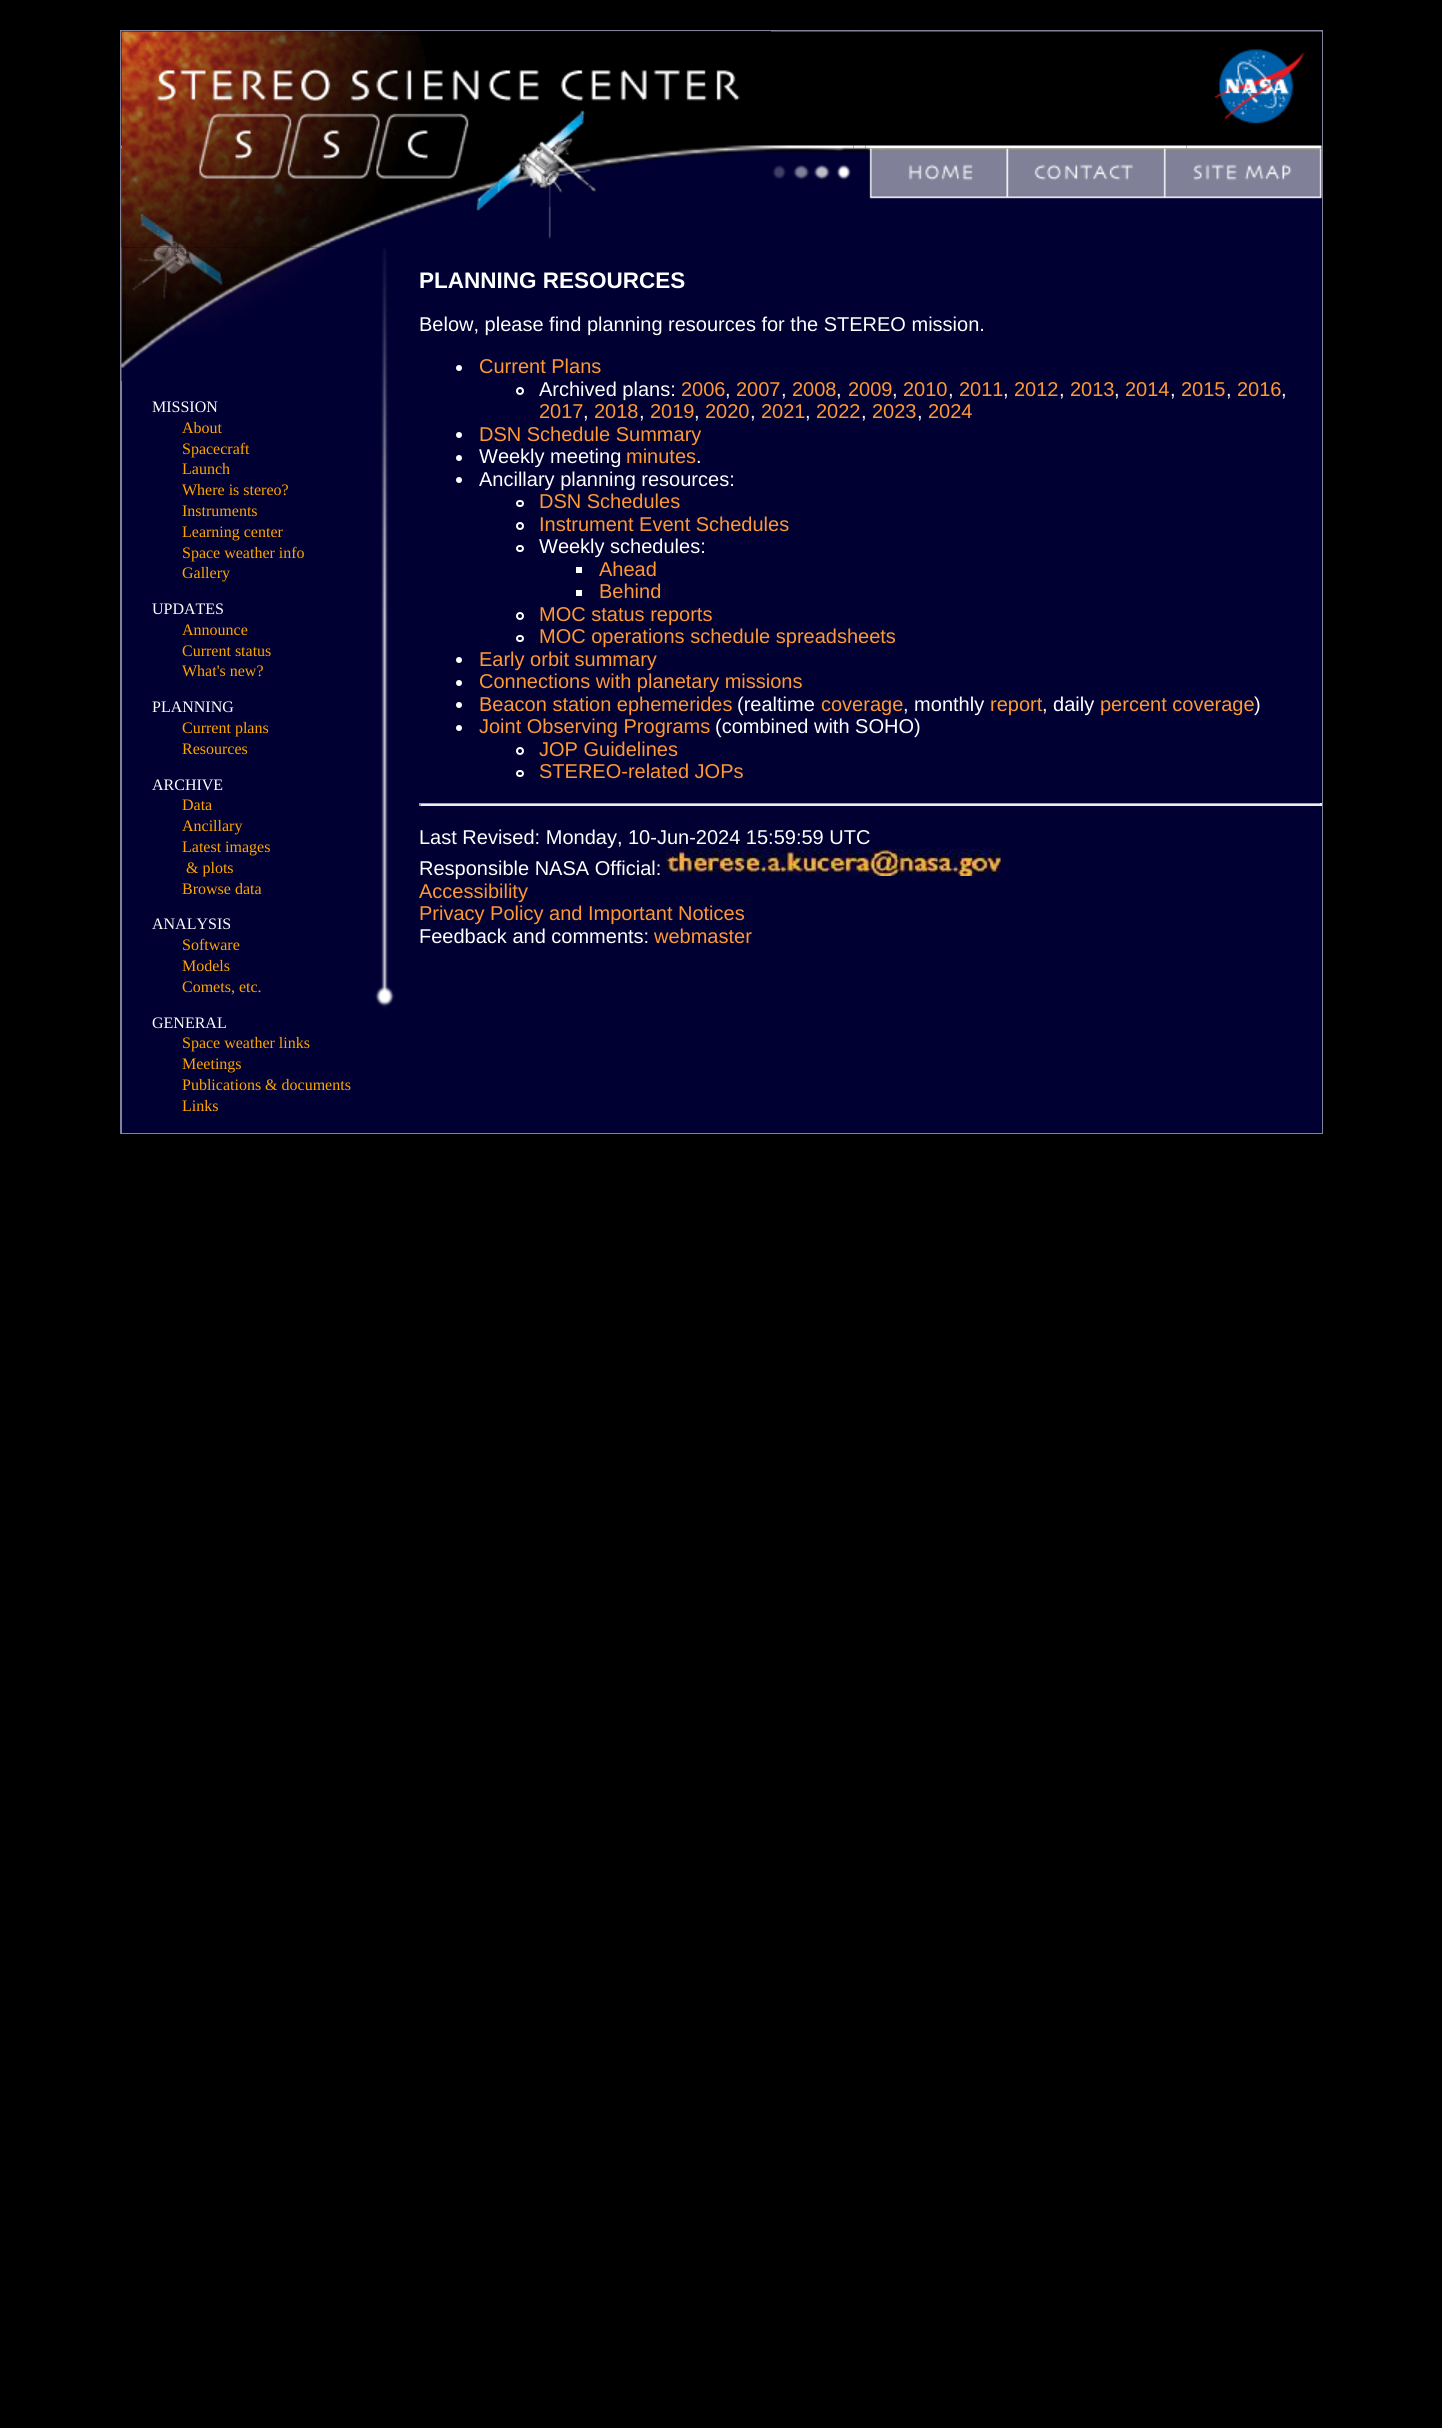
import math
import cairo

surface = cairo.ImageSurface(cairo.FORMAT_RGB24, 1442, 2428)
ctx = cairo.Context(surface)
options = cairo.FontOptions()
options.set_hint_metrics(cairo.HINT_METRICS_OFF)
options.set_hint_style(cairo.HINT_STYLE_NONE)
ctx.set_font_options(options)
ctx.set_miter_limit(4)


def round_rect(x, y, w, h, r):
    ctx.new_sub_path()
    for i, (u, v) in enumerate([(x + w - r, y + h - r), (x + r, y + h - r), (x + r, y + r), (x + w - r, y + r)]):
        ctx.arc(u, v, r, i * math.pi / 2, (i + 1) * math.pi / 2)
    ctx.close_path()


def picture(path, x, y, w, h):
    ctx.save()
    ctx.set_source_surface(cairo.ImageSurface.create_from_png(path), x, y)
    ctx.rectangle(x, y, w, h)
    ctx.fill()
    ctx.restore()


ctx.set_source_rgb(0, 0, 0)
ctx.paint()
ctx.rectangle(121, 31, 1201, 1102)
ctx.set_source_rgb(0.51, 0.51, 0.604)
ctx.stroke()
ctx.set_source_rgb(0, 0, 0.2)
ctx.rectangle(122, 248, 1200, 885)
ctx.fill()
ctx.set_source_rgb(0, 0, 0)
ctx.rectangle(1321, 32, 1, 117)
ctx.fill()
picture("img1.png", 121, 31, 650, 217)
ctx.set_source_rgb(0, 0, 0.2)
ctx.rectangle(122, 149, 1200, 99)
ctx.fill()
picture("img8.png", 121, 247, 205, 134)
picture("img2.png", 121, 31, 650, 217)
picture("img7.png", 771, 148, 551, 51)
picture("img3.png", 771, 31, 83, 118)
picture("img4.png", 853, 31, 13, 118)
picture("img5.png", 865, 31, 322, 118)
picture("img6.png", 1186, 31, 136, 118)
picture("img9.png", 374, 248, 21, 761)
ctx.select_font_face("Liberation Serif")
ctx.set_font_size(16)
ctx.set_source_rgb(1, 1, 1)
ctx.move_to(152, 412)
ctx.show_text("MISSION")
ctx.set_source_rgb(1, 0.647, 0)
ctx.move_to(182, 433)
ctx.show_text("About")
ctx.move_to(182, 454)
ctx.show_text("Spacecraft")
ctx.move_to(182, 474)
ctx.show_text("Launch")
ctx.move_to(182, 495)
ctx.show_text("Where is stereo?")
ctx.move_to(182, 516)
ctx.show_text("Instruments")
ctx.move_to(182, 537)
ctx.show_text("Learning center")
ctx.move_to(182, 558)
ctx.show_text("Space weather info")
ctx.move_to(182, 578)
ctx.show_text("Gallery")
ctx.set_source_rgb(1, 1, 1)
ctx.move_to(152, 614)
ctx.show_text("UPDATES")
ctx.set_source_rgb(1, 0.647, 0)
ctx.move_to(182, 635)
ctx.show_text("Announce")
ctx.move_to(182, 656)
ctx.show_text("Current status")
ctx.move_to(182, 676)
ctx.show_text("What's new?")
ctx.set_source_rgb(1, 1, 1)
ctx.move_to(152, 712)
ctx.show_text("PLANNING")
ctx.set_source_rgb(1, 0.647, 0)
ctx.move_to(182, 733)
ctx.show_text("Current plans")
ctx.move_to(182, 754)
ctx.show_text("Resources")
ctx.set_source_rgb(1, 1, 1)
ctx.move_to(152, 790)
ctx.show_text("ARCHIVE")
ctx.set_source_rgb(1, 0.647, 0)
ctx.move_to(182, 810)
ctx.show_text("Data")
ctx.move_to(182, 831)
ctx.show_text("Ancillary")
ctx.move_to(182, 852)
ctx.show_text("Latest images")
ctx.move_to(186, 873)
ctx.show_text("& plots")
ctx.move_to(182, 894)
ctx.show_text("Browse data")
ctx.set_source_rgb(1, 1, 1)
ctx.move_to(152, 929)
ctx.show_text("ANALYSIS")
ctx.set_source_rgb(1, 0.647, 0)
ctx.move_to(182, 950)
ctx.show_text("Software")
ctx.move_to(182, 971)
ctx.show_text("Models")
ctx.move_to(182, 992)
ctx.show_text("Comets, etc.")
ctx.set_source_rgb(1, 1, 1)
ctx.move_to(152, 1028)
ctx.show_text("GENERAL")
ctx.set_source_rgb(1, 0.647, 0)
ctx.move_to(182, 1048)
ctx.show_text("Space weather links")
ctx.move_to(182, 1069)
ctx.show_text("Meetings")
ctx.move_to(182, 1090)
ctx.show_text("Publications & documents")
ctx.move_to(182, 1111)
ctx.show_text("Links")
ctx.select_font_face("Liberation Sans", cairo.FONT_SLANT_NORMAL, cairo.FONT_WEIGHT_BOLD)
ctx.set_font_size(22.5)
ctx.set_source_rgb(1, 1, 1)
ctx.move_to(419, 288)
ctx.show_text("PLANNING RESOURCES")
ctx.select_font_face("Liberation Sans")
ctx.set_font_size(20)
ctx.move_to(419, 331)
ctx.show_text("Below, please find planning resources for the STEREO mission.")
ctx.new_path()
ctx.arc(459, 368, 3, 0, 2 * math.pi)
ctx.fill()
ctx.set_source_rgb(1, 0.6, 0.2)
ctx.move_to(479, 373)
ctx.show_text("Current Plans")
ctx.new_path()
ctx.arc(520, 391, 3, 0, 2 * math.pi)
ctx.set_source_rgb(1, 1, 1)
ctx.stroke()
ctx.move_to(539, 396)
ctx.show_text("Archived plans:")
ctx.set_source_rgb(1, 0.6, 0.2)
ctx.move_to(681, 396)
ctx.show_text("2006")
ctx.move_to(736, 396)
ctx.show_text("2007")
ctx.move_to(792, 396)
ctx.show_text("2008")
ctx.move_to(848, 396)
ctx.show_text("2009")
ctx.move_to(903, 396)
ctx.show_text("2010")
ctx.move_to(959, 396)
ctx.show_text("2011")
ctx.move_to(1014, 396)
ctx.show_text("2012")
ctx.move_to(1070, 396)
ctx.show_text("2013")
ctx.move_to(1125, 396)
ctx.show_text("2014")
ctx.move_to(1181, 396)
ctx.show_text("2015")
ctx.move_to(1237, 396)
ctx.show_text("2016")
ctx.set_source_rgb(1, 1, 1)
ctx.move_to(725, 396)
ctx.show_text(",")
ctx.move_to(781, 396)
ctx.show_text(",")
ctx.move_to(836, 396)
ctx.show_text(",")
ctx.move_to(892, 396)
ctx.show_text(",")
ctx.move_to(948, 396)
ctx.show_text(",")
ctx.move_to(1003, 396)
ctx.show_text(",")
ctx.move_to(1059, 396)
ctx.show_text(",")
ctx.move_to(1114, 396)
ctx.show_text(",")
ctx.move_to(1170, 396)
ctx.show_text(",")
ctx.move_to(1226, 396)
ctx.show_text(",")
ctx.move_to(1281, 396)
ctx.show_text(",")
ctx.set_source_rgb(1, 0.6, 0.2)
ctx.move_to(539, 418)
ctx.show_text("2017")
ctx.set_source_rgb(1, 1, 1)
ctx.move_to(583, 418)
ctx.show_text(",")
ctx.set_source_rgb(1, 0.6, 0.2)
ctx.move_to(594, 418)
ctx.show_text("2018")
ctx.set_source_rgb(1, 1, 1)
ctx.move_to(639, 418)
ctx.show_text(",")
ctx.set_source_rgb(1, 0.6, 0.2)
ctx.move_to(650, 418)
ctx.show_text("2019")
ctx.set_source_rgb(1, 1, 1)
ctx.move_to(694, 418)
ctx.show_text(",")
ctx.set_source_rgb(1, 0.6, 0.2)
ctx.move_to(705, 418)
ctx.show_text("2020")
ctx.set_source_rgb(1, 1, 1)
ctx.move_to(750, 418)
ctx.show_text(",")
ctx.set_source_rgb(1, 0.6, 0.2)
ctx.move_to(761, 418)
ctx.show_text("2021")
ctx.set_source_rgb(1, 1, 1)
ctx.move_to(805, 418)
ctx.show_text(",")
ctx.set_source_rgb(1, 0.6, 0.2)
ctx.move_to(816, 418)
ctx.show_text("2022")
ctx.set_source_rgb(1, 1, 1)
ctx.move_to(861, 418)
ctx.show_text(",")
ctx.set_source_rgb(1, 0.6, 0.2)
ctx.move_to(872, 418)
ctx.show_text("2023")
ctx.set_source_rgb(1, 1, 1)
ctx.move_to(917, 418)
ctx.show_text(",")
ctx.set_source_rgb(1, 0.6, 0.2)
ctx.move_to(928, 418)
ctx.show_text("2024")
ctx.set_source_rgb(1, 1, 1)
ctx.new_path()
ctx.arc(459, 435, 3, 0, 2 * math.pi)
ctx.fill()
ctx.set_source_rgb(1, 0.6, 0.2)
ctx.move_to(479, 441)
ctx.show_text("DSN Schedule Summary")
ctx.set_source_rgb(1, 1, 1)
ctx.new_path()
ctx.arc(459, 458, 3, 0, 2 * math.pi)
ctx.fill()
ctx.move_to(479, 463)
ctx.show_text("Weekly meeting")
ctx.set_source_rgb(1, 0.6, 0.2)
ctx.move_to(626, 463)
ctx.show_text("minutes")
ctx.set_source_rgb(1, 1, 1)
ctx.move_to(696, 463)
ctx.show_text(".")
ctx.new_path()
ctx.arc(459, 480, 3, 0, 2 * math.pi)
ctx.fill()
ctx.move_to(479, 486)
ctx.show_text("Ancillary planning resources:")
round_rect(517, 501, 6, 5, 2.5)
ctx.stroke()
ctx.set_source_rgb(1, 0.6, 0.2)
ctx.move_to(539, 508)
ctx.show_text("DSN Schedules")
ctx.new_path()
ctx.arc(520, 526, 3, 0, 2 * math.pi)
ctx.set_source_rgb(1, 1, 1)
ctx.stroke()
ctx.set_source_rgb(1, 0.6, 0.2)
ctx.move_to(539, 531)
ctx.show_text("Instrument Event Schedules")
round_rect(517, 546, 6, 5, 2.5)
ctx.set_source_rgb(1, 1, 1)
ctx.stroke()
ctx.move_to(539, 553)
ctx.show_text("Weekly schedules:")
ctx.rectangle(576, 567, 6, 6)
ctx.fill()
ctx.set_source_rgb(1, 0.6, 0.2)
ctx.move_to(599, 576)
ctx.show_text("Ahead")
ctx.set_source_rgb(1, 1, 1)
ctx.rectangle(576, 590, 6, 6)
ctx.fill()
ctx.set_source_rgb(1, 0.6, 0.2)
ctx.move_to(599, 598)
ctx.show_text("Behind")
ctx.new_path()
ctx.arc(520, 616, 3, 0, 2 * math.pi)
ctx.set_source_rgb(1, 1, 1)
ctx.stroke()
ctx.set_source_rgb(1, 0.6, 0.2)
ctx.move_to(539, 621)
ctx.show_text("MOC status reports")
round_rect(517, 636, 6, 5, 2.5)
ctx.set_source_rgb(1, 1, 1)
ctx.stroke()
ctx.set_source_rgb(1, 0.6, 0.2)
ctx.move_to(539, 643)
ctx.show_text("MOC operations schedule spreadsheets")
ctx.set_source_rgb(1, 1, 1)
ctx.new_path()
ctx.arc(459, 660, 3, 0, 2 * math.pi)
ctx.fill()
ctx.set_source_rgb(1, 0.6, 0.2)
ctx.move_to(479, 666)
ctx.show_text("Early orbit summary")
ctx.set_source_rgb(1, 1, 1)
ctx.new_path()
ctx.arc(459, 683, 3, 0, 2 * math.pi)
ctx.fill()
ctx.set_source_rgb(1, 0.6, 0.2)
ctx.move_to(479, 688)
ctx.show_text("Connections with planetary missions")
ctx.set_source_rgb(1, 1, 1)
ctx.new_path()
ctx.arc(459, 705, 3, 0, 2 * math.pi)
ctx.fill()
ctx.set_source_rgb(1, 0.6, 0.2)
ctx.move_to(479, 711)
ctx.show_text("Beacon station ephemerides")
ctx.set_source_rgb(1, 1, 1)
ctx.move_to(737, 711)
ctx.show_text("(realtime")
ctx.set_source_rgb(1, 0.6, 0.2)
ctx.move_to(821, 711)
ctx.show_text("coverage")
ctx.set_source_rgb(1, 1, 1)
ctx.move_to(903, 711)
ctx.show_text(", monthly")
ctx.set_source_rgb(1, 0.6, 0.2)
ctx.move_to(990, 711)
ctx.show_text("report")
ctx.set_source_rgb(1, 1, 1)
ctx.move_to(1042, 711)
ctx.show_text(", daily")
ctx.set_source_rgb(1, 0.6, 0.2)
ctx.move_to(1100, 711)
ctx.show_text("percent coverage")
ctx.set_source_rgb(1, 1, 1)
ctx.move_to(1254, 711)
ctx.show_text(")")
ctx.new_path()
ctx.arc(459, 728, 3, 0, 2 * math.pi)
ctx.fill()
ctx.set_source_rgb(1, 0.6, 0.2)
ctx.move_to(479, 733)
ctx.show_text("Joint Observing Programs")
ctx.set_source_rgb(1, 1, 1)
ctx.move_to(715, 733)
ctx.show_text("(combined with SOHO)")
ctx.new_path()
ctx.arc(520, 751, 3, 0, 2 * math.pi)
ctx.stroke()
ctx.set_source_rgb(1, 0.6, 0.2)
ctx.move_to(539, 756)
ctx.show_text("JOP Guidelines")
round_rect(517, 771, 6, 5, 2.5)
ctx.set_source_rgb(1, 1, 1)
ctx.stroke()
ctx.set_source_rgb(1, 0.6, 0.2)
ctx.move_to(539, 778)
ctx.show_text("STEREO-related JOPs")
ctx.set_source_rgb(0.624, 0.624, 0.624)
ctx.rectangle(419, 803, 903, 1)
ctx.fill()
ctx.set_source_rgb(0.933, 0.933, 0.933)
ctx.rectangle(1320, 803, 2, 3)
ctx.fill()
ctx.rectangle(419, 804, 903, 2)
ctx.fill()
ctx.set_source_rgb(0.624, 0.624, 0.624)
ctx.rectangle(419, 803, 2, 3)
ctx.fill()
ctx.set_source_rgb(1, 1, 1)
ctx.move_to(419, 844)
ctx.show_text("Last Revised: Monday, 10-Jun-2024 15:59:59 UTC")
ctx.move_to(419, 875)
ctx.show_text("Responsible NASA Official:")
picture("img10.png", 666, 849, 335, 27)
ctx.set_source_rgb(1, 0.6, 0.2)
ctx.move_to(419, 898)
ctx.show_text("Accessibility")
ctx.move_to(419, 920)
ctx.show_text("Privacy Policy and Important Notices")
ctx.set_source_rgb(1, 1, 1)
ctx.move_to(419, 943)
ctx.show_text("Feedback and comments:")
ctx.set_source_rgb(1, 0.6, 0.2)
ctx.move_to(654, 943)
ctx.show_text("webmaster")
surface.write_to_png("page.png")
